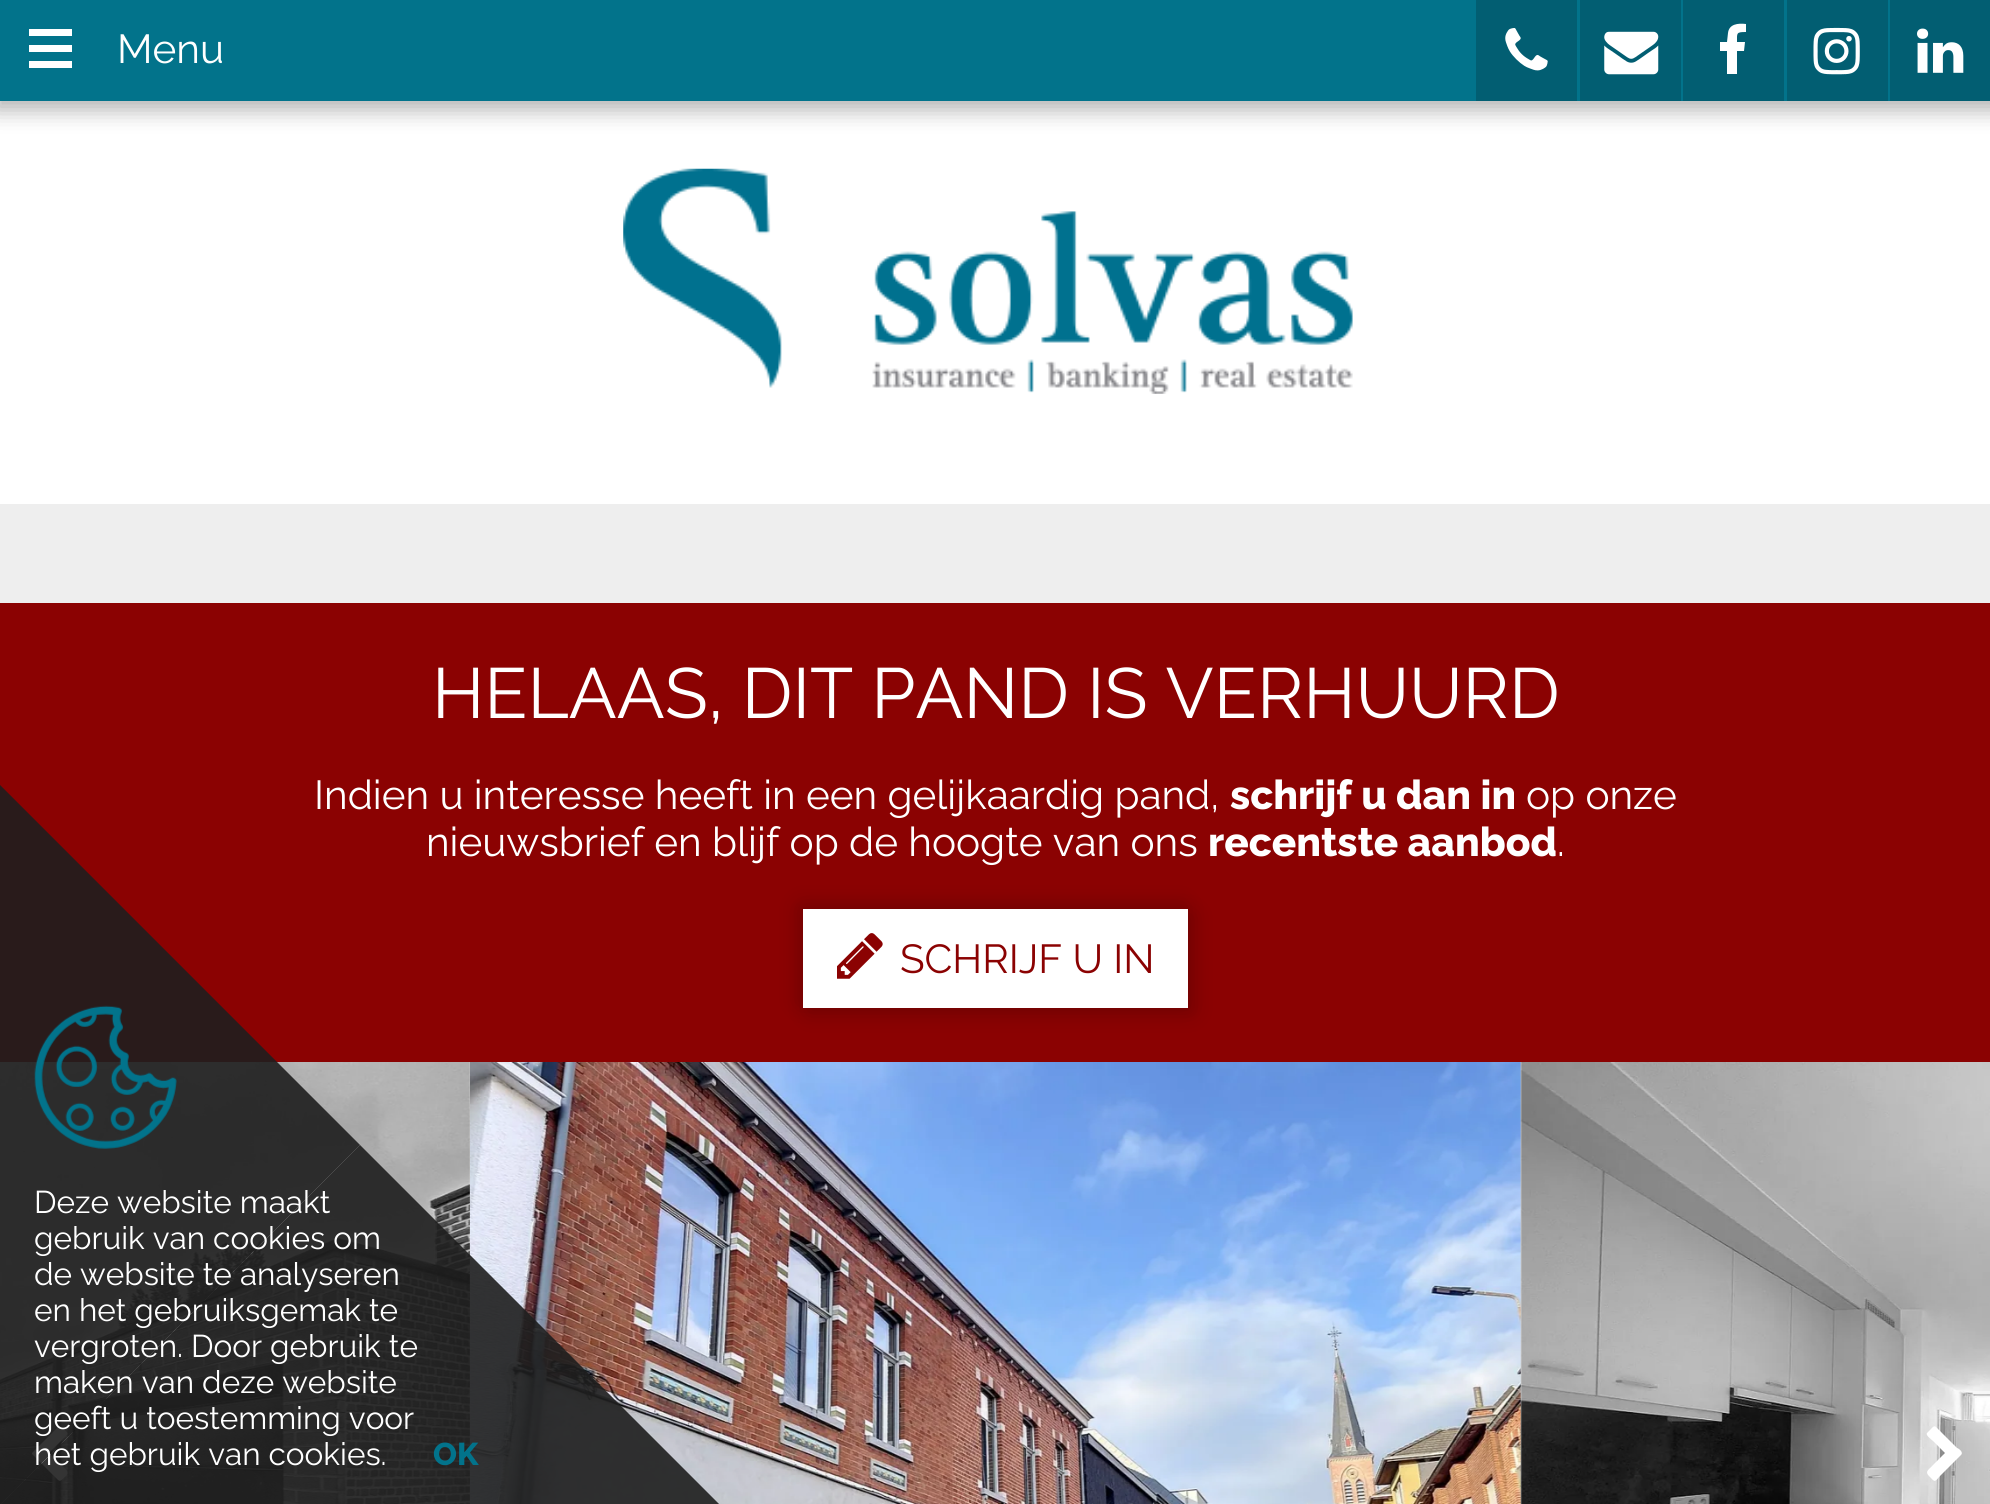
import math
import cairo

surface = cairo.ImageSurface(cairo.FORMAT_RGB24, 1990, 1504)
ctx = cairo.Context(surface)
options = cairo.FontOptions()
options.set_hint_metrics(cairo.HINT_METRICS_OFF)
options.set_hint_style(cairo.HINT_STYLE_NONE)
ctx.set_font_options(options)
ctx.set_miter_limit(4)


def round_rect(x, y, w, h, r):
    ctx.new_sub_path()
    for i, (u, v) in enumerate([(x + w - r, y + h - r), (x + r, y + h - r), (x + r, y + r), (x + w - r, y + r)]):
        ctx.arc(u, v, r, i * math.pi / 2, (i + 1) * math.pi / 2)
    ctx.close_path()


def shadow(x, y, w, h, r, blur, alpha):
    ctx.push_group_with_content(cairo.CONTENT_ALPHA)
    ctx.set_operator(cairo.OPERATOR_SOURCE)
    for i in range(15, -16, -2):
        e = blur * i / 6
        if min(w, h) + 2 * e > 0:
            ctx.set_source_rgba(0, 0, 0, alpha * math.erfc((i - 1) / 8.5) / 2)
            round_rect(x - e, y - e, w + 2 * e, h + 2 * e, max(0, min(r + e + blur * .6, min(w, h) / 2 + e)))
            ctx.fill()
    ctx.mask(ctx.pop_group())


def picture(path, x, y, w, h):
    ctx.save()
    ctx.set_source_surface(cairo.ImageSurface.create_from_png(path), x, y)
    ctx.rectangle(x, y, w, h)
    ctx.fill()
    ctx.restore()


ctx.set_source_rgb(1, 1, 1)
ctx.paint()
ctx.set_source_rgb(0, 0, 0)
shadow(-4, 0, 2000, 110, 0, 11, 0.3)
ctx.set_source_rgb(0.008, 0.451, 0.545)
ctx.rectangle(0, 0, 1890, 101)
ctx.fill()
ctx.set_source_rgb(1, 1, 1)
ctx.rectangle(29, 45, 43, 7)
ctx.fill()
ctx.rectangle(29, 29, 43, 7)
ctx.fill()
ctx.rectangle(29, 61, 43, 7)
ctx.fill()
ctx.select_font_face("Raleway")
ctx.set_font_size(40.5)
ctx.move_to(117, 63)
ctx.show_text("Menu")
ctx.set_source_rgb(0.008, 0.369, 0.447)
ctx.rectangle(1476, 0, 101, 101)
ctx.fill()
picture("img1.png", 1505, 28, 43, 43)
ctx.rectangle(1580, 0, 101, 101)
ctx.fill()
picture("img2.png", 1604, 31, 55, 44)
ctx.rectangle(1683, 0, 101, 101)
ctx.fill()
ctx.set_source_rgb(1, 1, 1)
ctx.new_path()
ctx.move_to(1746, 24)
ctx.line_to(1746, 32)
ctx.curve_to(1736, 32, 1737, 33, 1737, 42)
ctx.line_to(1745, 42)
ctx.line_to(1744, 51)
ctx.line_to(1737, 51)
ctx.line_to(1737, 74)
ctx.line_to(1727, 74)
ctx.line_to(1727, 51)
ctx.line_to(1720, 51)
ctx.line_to(1720, 42)
ctx.line_to(1727, 42)
ctx.line_to(1728, 33)
ctx.curve_to(1729, 24, 1738, 23, 1746, 24)
ctx.close_path()
ctx.fill()
ctx.set_source_rgb(0.008, 0.369, 0.447)
ctx.rectangle(1787, 0, 101, 101)
ctx.fill()
picture("img3.png", 1813, 27, 47, 48)
ctx.rectangle(1890, 0, 100, 101)
ctx.fill()
picture("img4.png", 1917, 28, 47, 45)
picture("img5.png", 623, 168, 730, 226)
ctx.set_source_rgb(0.933, 0.933, 0.933)
ctx.rectangle(0, 504, 1990, 99)
ctx.fill()
ctx.set_source_rgb(0.545, 0.008, 0.008)
ctx.rectangle(0, 603, 1990, 459)
ctx.fill()
ctx.set_font_size(70.9)
ctx.set_source_rgb(1, 1, 1)
ctx.move_to(432, 718)
ctx.show_text("HELAAS, DIT PAND IS VERHUURD")
ctx.set_font_size(40.5)
ctx.move_to(314, 809)
ctx.show_text("Indien u interesse heeft in een gelijkaardig pand,")
ctx.select_font_face("Raleway ExtraBold")
ctx.move_to(1230, 809)
ctx.show_text("schrijf u dan in")
ctx.select_font_face("Raleway")
ctx.move_to(1526, 809)
ctx.show_text("op onze")
ctx.move_to(426, 856)
ctx.show_text("nieuwsbrief en blijf op de hoogte van ons")
ctx.select_font_face("Raleway ExtraBold")
ctx.move_to(1208, 856)
ctx.show_text("recentste aanbod")
ctx.select_font_face("Raleway")
ctx.move_to(1557, 856)
ctx.show_text(".")
ctx.set_source_rgb(0, 0, 0)
shadow(799, 905, 385, 99, 0, 11, 0.15)
shadow(808, 914, 385, 99, 0, 11, 0.15)
ctx.set_source_rgb(1, 1, 1)
ctx.rectangle(803, 909, 385, 99)
ctx.fill()
picture("img6.png", 837, 933, 46, 46)
ctx.set_source_rgb(0.545, 0.008, 0.008)
ctx.move_to(900, 973)
ctx.show_text("SCHRIJF U IN")
picture("img7.png", 0, 1062, 470, 442)
picture("img8.png", 470, 1062, 1051, 442)
picture("img9.png", 1520, 1062, 470, 442)
ctx.set_source_rgb(1, 1, 1)
ctx.new_path()
ctx.move_to(67, 1435)
ctx.line_to(49, 1453)
ctx.line_to(61, 1465)
ctx.curve_to(65, 1469, 70, 1471, 66, 1476)
ctx.curve_to(59, 1482, 61, 1483, 54, 1476)
ctx.line_to(32, 1454)
ctx.line_to(32, 1453)
ctx.line_to(54, 1431)
ctx.curve_to(59, 1426, 59, 1424, 63, 1429)
ctx.curve_to(65, 1430, 69, 1433, 67, 1435)
ctx.close_path()
ctx.fill()
ctx.new_path()
ctx.move_to(1961, 1455)
ctx.line_to(1940, 1476)
ctx.curve_to(1934, 1483, 1935, 1482, 1929, 1476)
ctx.curve_to(1924, 1471, 1930, 1469, 1933, 1465)
ctx.line_to(1945, 1453)
ctx.line_to(1933, 1441)
ctx.curve_to(1932, 1440, 1925, 1435, 1927, 1433)
ctx.line_to(1931, 1429)
ctx.curve_to(1932, 1428, 1934, 1425, 1936, 1427)
ctx.line_to(1957, 1448)
ctx.curve_to(1958, 1448, 1964, 1452, 1961, 1455)
ctx.close_path()
ctx.fill()
ctx.set_source_rgba(0.118, 0.118, 0.118, 0.9)
ctx.new_path()
ctx.move_to(720, 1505)
ctx.line_to(0, 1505)
ctx.line_to(360, 1145)
ctx.close_path()
ctx.fill()
ctx.new_path()
ctx.move_to(0, 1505)
ctx.line_to(0, 785)
ctx.line_to(360, 1145)
ctx.close_path()
ctx.fill()
picture("img10.png", 34, 1005, 143, 144)
ctx.set_font_size(31.5)
ctx.set_source_rgb(1, 1, 1)
ctx.move_to(34, 1213)
ctx.show_text("Deze website maakt")
ctx.move_to(34, 1249)
ctx.show_text("gebruik van cookies om")
ctx.move_to(34, 1285)
ctx.show_text("de website te analyseren")
ctx.move_to(34, 1321)
ctx.show_text("en het gebruiksgemak te")
ctx.move_to(34, 1357)
ctx.show_text("vergroten. Door gebruik te")
ctx.move_to(34, 1393)
ctx.show_text("maken van deze website")
ctx.move_to(34, 1429)
ctx.show_text("geeft u toestemming voor")
ctx.move_to(34, 1465)
ctx.show_text("het gebruik van cookies.")
ctx.select_font_face("Raleway ExtraBold")
ctx.set_source_rgb(0.008, 0.451, 0.545)
ctx.move_to(433, 1465)
ctx.show_text("OK")
surface.write_to_png("page.png")
